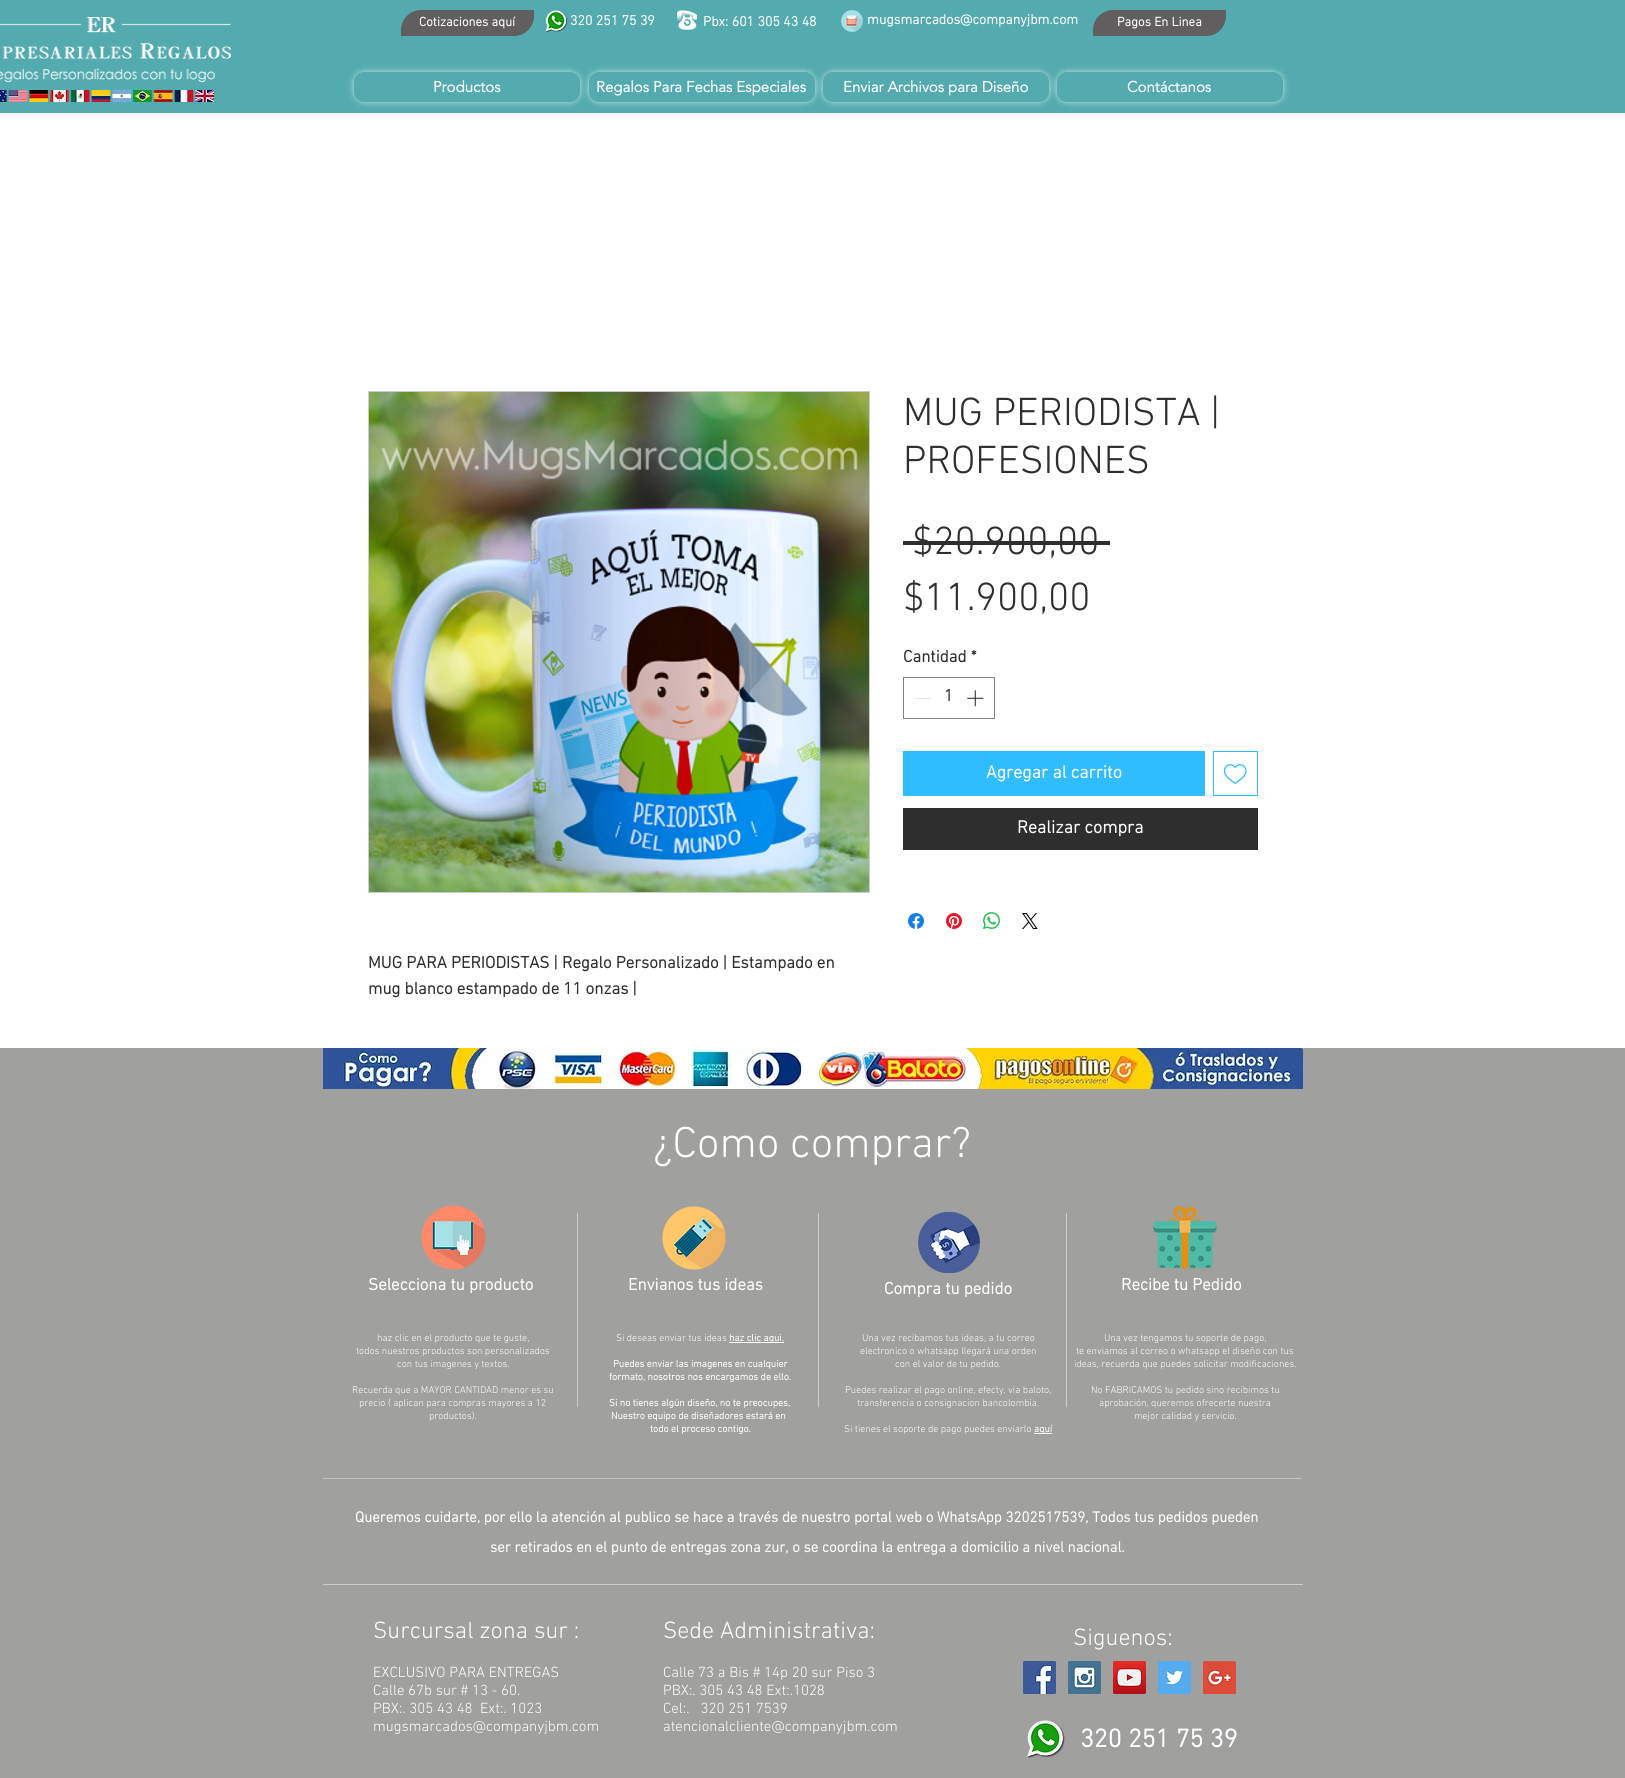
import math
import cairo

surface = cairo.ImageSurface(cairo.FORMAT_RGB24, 1625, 1778)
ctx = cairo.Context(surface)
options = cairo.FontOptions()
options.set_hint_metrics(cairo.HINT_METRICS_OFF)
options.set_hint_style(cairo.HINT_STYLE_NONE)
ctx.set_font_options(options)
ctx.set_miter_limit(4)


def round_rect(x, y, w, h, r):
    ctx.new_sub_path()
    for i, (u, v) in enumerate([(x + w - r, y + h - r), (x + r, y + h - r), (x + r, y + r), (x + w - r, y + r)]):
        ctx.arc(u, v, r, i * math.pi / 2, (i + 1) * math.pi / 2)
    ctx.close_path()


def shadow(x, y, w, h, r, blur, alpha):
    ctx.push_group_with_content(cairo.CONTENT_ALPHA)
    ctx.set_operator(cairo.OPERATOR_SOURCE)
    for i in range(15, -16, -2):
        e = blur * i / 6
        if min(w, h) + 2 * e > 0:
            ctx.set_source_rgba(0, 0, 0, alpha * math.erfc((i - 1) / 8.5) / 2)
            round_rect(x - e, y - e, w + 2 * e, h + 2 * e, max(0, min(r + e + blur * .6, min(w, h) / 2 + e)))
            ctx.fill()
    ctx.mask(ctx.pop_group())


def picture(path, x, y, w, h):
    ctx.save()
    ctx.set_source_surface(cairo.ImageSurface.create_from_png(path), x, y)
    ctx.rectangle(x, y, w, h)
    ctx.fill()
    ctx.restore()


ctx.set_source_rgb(1, 1, 1)
ctx.paint()
ctx.set_source_rgb(0.329, 0.671, 0.686)
ctx.rectangle(0, 0, 1625, 113)
ctx.fill()
picture("img1.png", 0, 17, 231, 65)
ctx.set_source_rgb(0.376, 0.369, 0.369)
ctx.new_path()
ctx.move_to(421, 10)
ctx.line_to(534, 10)
ctx.line_to(534, 16)
ctx.curve_to(534, 27, 525, 36, 514, 36)
ctx.line_to(401, 36)
ctx.line_to(401, 30)
ctx.curve_to(401, 19, 410, 10, 421, 10)
ctx.close_path()
ctx.fill()
ctx.select_font_face("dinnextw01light", cairo.FONT_SLANT_NORMAL, cairo.FONT_WEIGHT_BOLD)
ctx.set_font_size(13)
ctx.set_source_rgb(1, 1, 1)
ctx.move_to(419, 26)
ctx.show_text("Cotizaciones aquí")
picture("img2.png", 545, 10, 23, 22)
ctx.set_font_size(14)
ctx.move_to(570, 25)
ctx.show_text("320 251 75 39")
picture("img3.png", 677, 10, 20, 20)
ctx.move_to(703, 26)
ctx.show_text("Pbx: 601 305 43 48")
picture("img4.png", 841, 10, 22, 22)
ctx.move_to(867, 24)
ctx.show_text("mugsmarcados@companyjbm.com")
ctx.set_source_rgb(0.376, 0.369, 0.369)
ctx.new_path()
ctx.move_to(1113, 10)
ctx.line_to(1226, 10)
ctx.line_to(1226, 16)
ctx.curve_to(1226, 27, 1217, 36, 1206, 36)
ctx.line_to(1093, 36)
ctx.line_to(1093, 30)
ctx.curve_to(1093, 19, 1102, 10, 1113, 10)
ctx.close_path()
ctx.fill()
ctx.set_font_size(13)
ctx.set_source_rgb(1, 1, 1)
ctx.move_to(1117, 26)
ctx.show_text("Pagos En Linea")
ctx.set_source_rgb(1, 1, 1)
shadow(354, 72, 226, 30, 10, 3, 0.7)
ctx.set_source_rgb(0.329, 0.671, 0.686)
round_rect(354.5, 72.5, 225, 29, 9.5)
ctx.fill_preserve()
ctx.set_line_width(1)
ctx.stroke()
ctx.select_font_face("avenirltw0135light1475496", cairo.FONT_SLANT_NORMAL, cairo.FONT_WEIGHT_BOLD)
ctx.set_font_size(15)
ctx.set_source_rgb(1, 1, 1)
ctx.move_to(433, 92)
ctx.show_text("Productos")
ctx.set_source_rgb(1, 1, 1)
shadow(589, 72, 226, 30, 10, 3, 0.7)
ctx.set_source_rgb(0.329, 0.671, 0.686)
round_rect(589.5, 72.5, 225, 29, 9.5)
ctx.fill_preserve()
ctx.stroke()
ctx.set_source_rgb(1, 1, 1)
ctx.move_to(596, 92)
ctx.show_text("Regalos Para Fechas Especiales")
ctx.set_source_rgb(1, 1, 1)
shadow(823, 72, 226, 30, 10, 3, 0.7)
ctx.set_source_rgb(0.329, 0.671, 0.686)
round_rect(823.5, 72.5, 225, 29, 9.5)
ctx.fill_preserve()
ctx.stroke()
ctx.set_source_rgb(1, 1, 1)
ctx.move_to(843, 92)
ctx.show_text("Enviar Archivos para Diseño")
ctx.set_source_rgb(1, 1, 1)
shadow(1057, 72, 226, 30, 10, 3, 0.7)
ctx.set_source_rgb(0.329, 0.671, 0.686)
round_rect(1057.5, 72.5, 225, 29, 9.5)
ctx.fill_preserve()
ctx.stroke()
ctx.set_source_rgb(1, 1, 1)
ctx.move_to(1127, 92)
ctx.show_text("Contáctanos")
picture("img5.png", 0, 90, 214, 12)
ctx.select_font_face("dinnextw01light Light")
ctx.set_font_size(40)
ctx.set_source_rgb(0.184, 0.18, 0.18)
ctx.move_to(903, 425)
ctx.show_text("MUG PERIODISTA |")
ctx.move_to(903, 473)
ctx.show_text("PROFESIONES")
ctx.move_to(912, 554)
ctx.show_text("$20.900,00")
ctx.rectangle(903, 541, 207, 4)
ctx.fill()
ctx.move_to(903, 610)
ctx.show_text("$11.900,00")
ctx.select_font_face("dinnextw01light", cairo.FONT_SLANT_NORMAL, cairo.FONT_WEIGHT_BOLD)
ctx.set_font_size(17)
ctx.move_to(903, 662)
ctx.show_text("Cantidad *")
ctx.rectangle(903.5, 677.5, 91, 41)
ctx.set_source_rgb(0.51, 0.51, 0.51)
ctx.stroke()
ctx.set_source_rgb(0.89, 0.89, 0.89)
ctx.rectangle(916, 698, 15, 1)
ctx.fill()
ctx.set_source_rgb(0.184, 0.18, 0.18)
ctx.move_to(944, 701)
ctx.show_text("1")
picture("img6.png", 967, 690, 17, 17)
ctx.set_source_rgb(0.188, 0.741, 1)
ctx.rectangle(903, 751, 302, 45)
ctx.fill()
ctx.set_font_size(18)
ctx.set_source_rgb(1, 1, 1)
ctx.move_to(986, 778)
ctx.show_text("Agregar al carrito")
ctx.rectangle(1213.5, 751.5, 44, 44)
ctx.set_source_rgb(0.188, 0.741, 1)
ctx.stroke()
picture("img7.png", 1223, 764, 24, 20)
ctx.set_source_rgb(0.184, 0.18, 0.18)
ctx.rectangle(903, 808, 355, 42)
ctx.fill()
ctx.set_source_rgb(1, 1, 1)
ctx.move_to(1017, 833)
ctx.show_text("Realizar compra")
picture("img8.png", 908, 913, 16, 16)
picture("img9.png", 946, 913, 16, 16)
picture("img10.png", 983, 912, 17, 17)
picture("img11.png", 1022, 913, 16, 16)
ctx.rectangle(368.5, 391.5, 501, 501)
ctx.set_source_rgb(0.8, 0.8, 0.8)
ctx.stroke()
picture("img12.png", 369, 392, 500, 500)
ctx.set_font_size(17)
ctx.set_source_rgb(0.184, 0.18, 0.18)
ctx.move_to(368, 968)
ctx.show_text("MUG PARA PERIODISTAS | Regalo Personalizado | Estampado en")
ctx.move_to(368, 994)
ctx.show_text("mug blanco estampado de 11 onzas |")
ctx.set_source_rgb(0.627, 0.627, 0.624)
ctx.rectangle(0, 1048, 1625, 730)
ctx.fill()
picture("img13.png", 323, 1048, 979, 41)
picture("img14.png", 339, 1049, 964, 40)
ctx.select_font_face("dinnextw01light Light")
ctx.set_font_size(44)
ctx.set_source_rgb(1, 1, 1)
ctx.move_to(653, 1157)
ctx.show_text("¿Como comprar?")
ctx.set_source_rgb(0.8, 0.8, 0.8)
ctx.rectangle(323, 1478, 979, 1)
ctx.fill()
ctx.set_source_rgba(0.627, 0.627, 0.624, 0.2)
round_rect(323, 1193, 979, 319, 20)
ctx.fill()
picture("img15.png", 421, 1205, 65, 65)
ctx.set_source_rgb(0.8, 0.8, 0.8)
ctx.rectangle(577, 1213, 1, 194)
ctx.fill()
picture("img16.png", 662, 1206, 64, 64)
ctx.rectangle(818, 1213, 1, 194)
ctx.fill()
ctx.rectangle(1066, 1213, 1, 194)
ctx.fill()
picture("img17.png", 1153, 1206, 64, 63)
ctx.select_font_face("dinnextw01light", cairo.FONT_SLANT_NORMAL, cairo.FONT_WEIGHT_BOLD)
ctx.set_font_size(17)
ctx.set_source_rgb(1, 1, 1)
ctx.move_to(368, 1290)
ctx.show_text("Selecciona tu producto")
ctx.move_to(628, 1290)
ctx.show_text("Envianos tus ideas")
picture("img18.png", 918, 1212, 62, 61)
ctx.move_to(884, 1294)
ctx.show_text("Compra tu pedido")
ctx.move_to(1121, 1290)
ctx.show_text("Recibe tu Pedido")
ctx.select_font_face("dinnextw01light Light")
ctx.set_font_size(10)
ctx.move_to(377, 1341)
ctx.show_text("haz clic en el producto que te guste,")
ctx.move_to(356, 1354)
ctx.show_text("todos nuestros productos son personalizados")
ctx.move_to(397, 1367)
ctx.show_text("con tus imagenes y textos.")
ctx.move_to(352, 1393)
ctx.show_text("Recuerda que a MAYOR CANTIDAD menor es su")
ctx.move_to(359, 1406)
ctx.show_text("precio ( aplican para compras mayores a 12")
ctx.move_to(429, 1419)
ctx.show_text("productos).")
ctx.move_to(616, 1341)
ctx.show_text("Si deseas enviar tus ideas")
ctx.rectangle(729, 1342, 55, 1)
ctx.fill()
ctx.select_font_face("dinnextw01light", cairo.FONT_SLANT_NORMAL, cairo.FONT_WEIGHT_BOLD)
ctx.move_to(729, 1341)
ctx.show_text("haz clic aqui.")
ctx.move_to(613, 1367)
ctx.show_text("Puedes enviar las imagenes en cualquier")
ctx.move_to(609, 1380)
ctx.show_text("formato, nosotros nos encargamos de ello.")
ctx.move_to(609, 1406)
ctx.show_text("Si no tienes algún diseño, no te preocupes,")
ctx.move_to(611, 1419)
ctx.show_text("Nuestro equipo de diseñadores estará en")
ctx.move_to(650, 1432)
ctx.show_text("todo el proceso contigo.")
ctx.select_font_face("dinnextw01light Light")
ctx.move_to(862, 1341)
ctx.show_text("Una vez recibamos tus ideas, a tu correo")
ctx.move_to(860, 1354)
ctx.show_text("electronico o whatsapp llegará una orden")
ctx.move_to(895, 1367)
ctx.show_text("con el valor de tu pedido.")
ctx.move_to(845, 1393)
ctx.show_text("Puedes realizar el pago online, efecty, via baloto,")
ctx.move_to(857, 1406)
ctx.show_text("transferencia o consignacion bancolombia.")
ctx.move_to(844, 1432)
ctx.show_text("Si tienes el soporte de pago puedes enviarlo")
ctx.rectangle(1034, 1433, 18, 1)
ctx.fill()
ctx.select_font_face("dinnextw01light", cairo.FONT_SLANT_NORMAL, cairo.FONT_WEIGHT_BOLD)
ctx.move_to(1034, 1432)
ctx.show_text("aquí")
ctx.select_font_face("dinnextw01light Light")
ctx.move_to(1104, 1341)
ctx.show_text("Una vez tengamos tu soporte de pago,")
ctx.move_to(1076, 1354)
ctx.show_text("te enviamos al correo o whatsapp el diseño con tus")
ctx.move_to(1074, 1367)
ctx.show_text("ideas, recuerda que puedes solicitar modificaciones.")
ctx.move_to(1091, 1393)
ctx.show_text("No FABRICAMOS tu pedido sino recibimos tu")
ctx.move_to(1099, 1406)
ctx.show_text("aprobación, queremos ofrecerte nuestra")
ctx.move_to(1134, 1419)
ctx.show_text("mejor calidad y servicio.")
ctx.select_font_face("dinnextw01light", cairo.FONT_SLANT_NORMAL, cairo.FONT_WEIGHT_BOLD)
ctx.set_font_size(15)
ctx.move_to(355, 1522)
ctx.show_text("Queremos cuidarte, por ello la atención al publico se hace a través de nuestro portal web o WhatsApp 3202517539, Todos tus pedidos pueden")
ctx.move_to(490, 1552)
ctx.show_text("ser retirados en el punto de entregas zona zur, o se coordina la entrega a domicilio a nivel nacional.")
ctx.set_source_rgb(0.8, 0.8, 0.8)
ctx.rectangle(323, 1584, 980, 1)
ctx.fill()
ctx.select_font_face("dinnextw01light Light")
ctx.set_font_size(24)
ctx.set_source_rgb(1, 1, 1)
ctx.move_to(373, 1638)
ctx.show_text("Surcursal zona sur :")
ctx.set_font_size(15)
ctx.move_to(373, 1677)
ctx.show_text("EXCLUSIVO PARA ENTREGAS")
ctx.move_to(373, 1695)
ctx.show_text("Calle 67b sur # 13 - 60.")
ctx.move_to(373, 1713)
ctx.show_text("PBX:. 305 43 48  Ext:. 1023")
ctx.move_to(373, 1731)
ctx.show_text("mugsmarcados@companyjbm.com")
ctx.set_font_size(24)
ctx.move_to(663, 1638)
ctx.show_text("Sede Administrativa:")
ctx.set_font_size(15)
ctx.move_to(663, 1677)
ctx.show_text("Calle 73 a Bis # 14p 20 sur Piso 3")
ctx.move_to(663, 1695)
ctx.show_text("PBX:. 305 43 48 Ext:.1028")
ctx.move_to(663, 1713)
ctx.show_text("Cel:.   320 251 7539")
ctx.move_to(663, 1731)
ctx.show_text("atencionalcliente@companyjbm.com")
ctx.set_font_size(24)
ctx.move_to(1073, 1645)
ctx.show_text("Siguenos:")
picture("img19.png", 1023, 1661, 33, 33)
picture("img20.png", 1068, 1661, 33, 33)
picture("img21.png", 1113, 1661, 33, 33)
picture("img22.png", 1158, 1661, 33, 33)
picture("img23.png", 1203, 1661, 33, 33)
picture("img24.png", 1027, 1720, 38, 39)
ctx.select_font_face("dinnextw01light", cairo.FONT_SLANT_NORMAL, cairo.FONT_WEIGHT_BOLD)
ctx.set_font_size(26)
ctx.move_to(1080, 1747)
ctx.show_text("320 251 75 39")
surface.write_to_png("page.png")
